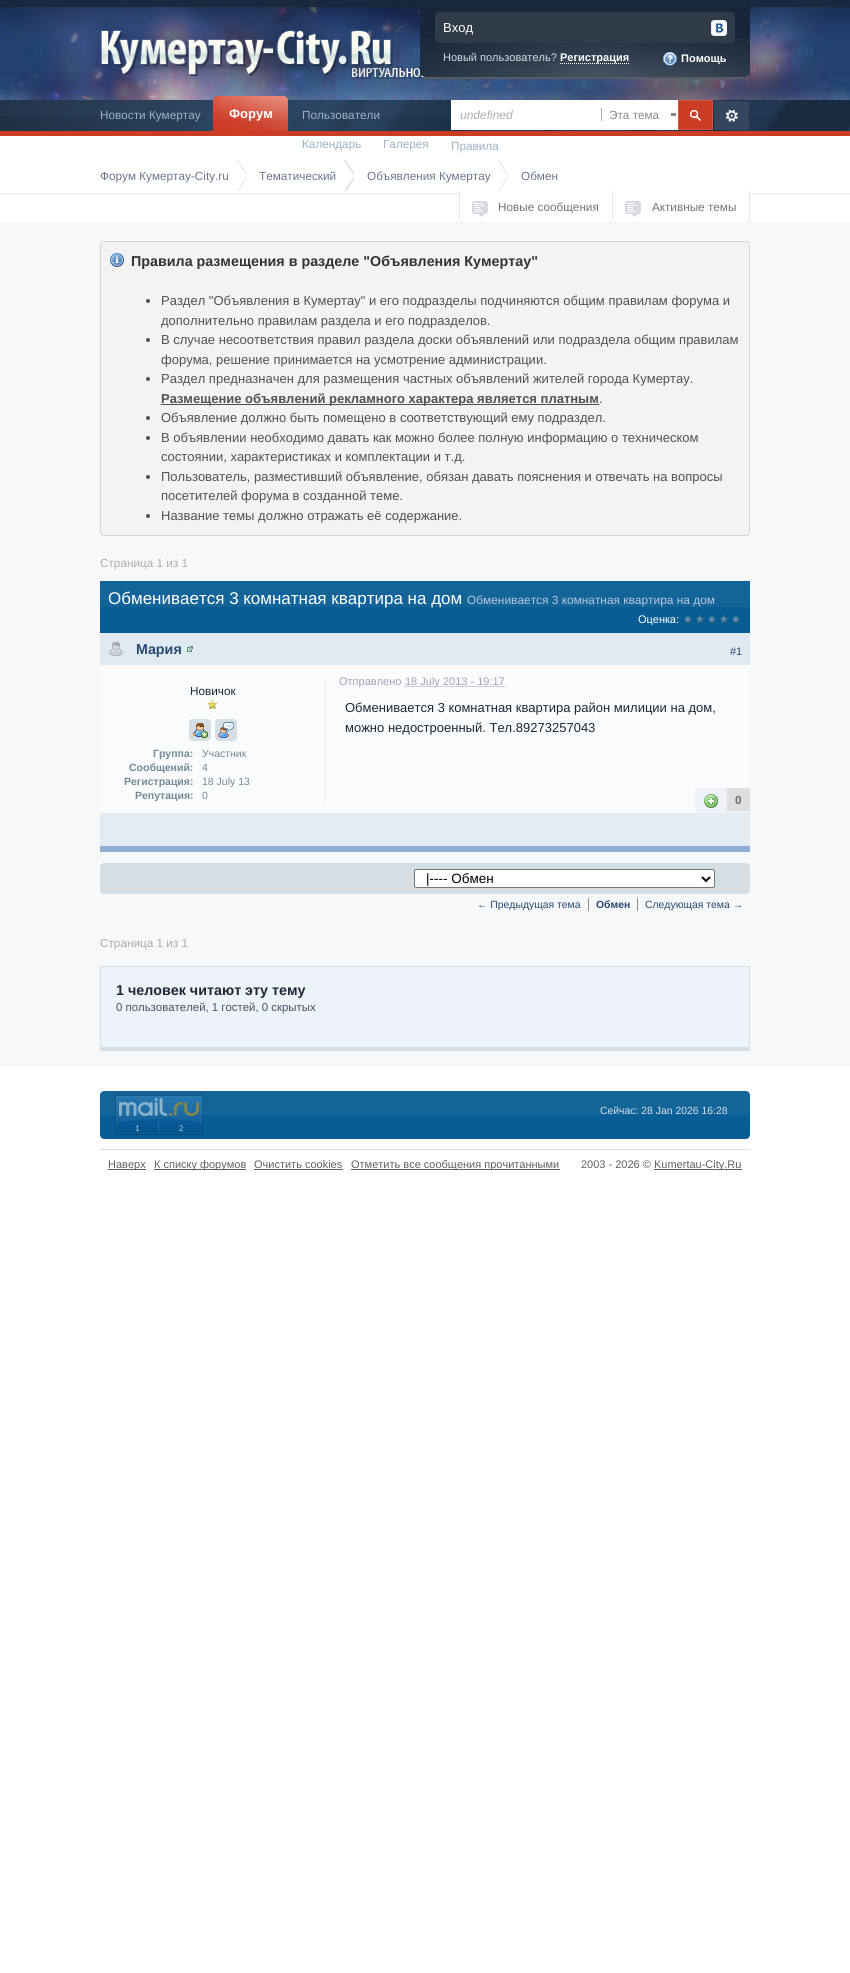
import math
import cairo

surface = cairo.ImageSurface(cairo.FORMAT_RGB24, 850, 1973)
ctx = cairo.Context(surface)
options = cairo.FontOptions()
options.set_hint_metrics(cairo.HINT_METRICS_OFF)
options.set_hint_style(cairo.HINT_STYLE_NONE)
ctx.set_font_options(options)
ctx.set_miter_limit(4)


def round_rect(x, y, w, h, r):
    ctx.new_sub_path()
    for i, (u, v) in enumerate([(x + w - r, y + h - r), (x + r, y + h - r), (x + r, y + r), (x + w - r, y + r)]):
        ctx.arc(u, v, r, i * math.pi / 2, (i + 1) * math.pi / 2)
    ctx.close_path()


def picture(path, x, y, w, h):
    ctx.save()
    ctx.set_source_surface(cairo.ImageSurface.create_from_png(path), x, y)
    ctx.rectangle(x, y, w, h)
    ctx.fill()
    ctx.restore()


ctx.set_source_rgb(1, 1, 1)
ctx.paint()
picture("img1.png", 0, 0, 850, 100)
picture("img2.png", 86, 20, 385, 65)
ctx.set_source_rgb(0.09, 0.153, 0.224)
ctx.new_path()
ctx.move_to(420, 7)
ctx.line_to(750, 7)
ctx.line_to(750, 73)
ctx.curve_to(750, 75, 747, 77, 744, 77)
ctx.line_to(426, 77)
ctx.curve_to(423, 77, 420, 75, 420, 73)
ctx.close_path()
ctx.fill()
picture("img3.png", 420, 39, 330, 38)
ctx.set_source_rgb(0.329, 0.361, 0.392)
ctx.rectangle(423, 77, 324, 2)
ctx.fill()
ctx.set_source_rgb(0.184, 0.231, 0.286)
round_rect(435, 12, 300, 31, 4)
ctx.fill()
ctx.select_font_face("Liberation Sans")
ctx.set_font_size(13)
ctx.set_source_rgb(1, 1, 1)
ctx.move_to(443, 32)
ctx.show_text("Вход")
picture("img4.png", 711, 20, 16, 16)
ctx.set_font_size(11)
ctx.set_source_rgb(0.835, 0.867, 0.898)
ctx.move_to(443, 61)
ctx.show_text("Новый пользователь?")
ctx.new_path()
ctx.move_to(560, 63.5)
ctx.line_to(629, 63.5)
ctx.set_source_rgb(1, 1, 1)
ctx.set_line_width(1)
ctx.set_dash([1, 1])
ctx.stroke()
ctx.select_font_face("Liberation Sans", cairo.FONT_SLANT_NORMAL, cairo.FONT_WEIGHT_BOLD)
ctx.move_to(560, 61)
ctx.show_text("Регистрация")
picture("img5.png", 663, 52, 14, 14)
ctx.move_to(681, 62)
ctx.show_text("Помощь")
picture("img6.png", 0, 100, 850, 31)
ctx.set_source_rgb(0.796, 0.235, 0.145)
ctx.rectangle(0, 131, 850, 5)
ctx.fill()
ctx.select_font_face("Liberation Sans")
ctx.set_font_size(11.75)
ctx.set_source_rgb(0.608, 0.698, 0.784)
ctx.move_to(100, 119)
ctx.show_text("Новости Кумертау")
picture("img7.png", 213, 96, 6, 35)
picture("img8.png", 219, 96, 69, 35)
ctx.select_font_face("Liberation Sans", cairo.FONT_SLANT_NORMAL, cairo.FONT_WEIGHT_BOLD)
ctx.set_font_size(13)
ctx.set_source_rgb(1, 1, 1)
ctx.move_to(229, 118)
ctx.show_text("Форум")
ctx.select_font_face("Liberation Sans")
ctx.set_font_size(11.75)
ctx.set_source_rgb(0.608, 0.698, 0.784)
ctx.move_to(302, 119)
ctx.show_text("Пользователи")
ctx.move_to(302, 148)
ctx.show_text("Календарь")
ctx.move_to(383, 148)
ctx.show_text("Галерея")
ctx.move_to(451, 150)
ctx.show_text("Правила")
ctx.set_source_rgb(1, 1, 1)
ctx.rectangle(451, 100, 227, 30)
ctx.fill()
ctx.select_font_face("Liberation Sans", cairo.FONT_SLANT_ITALIC)
ctx.set_font_size(12)
ctx.set_source_rgb(0.675, 0.675, 0.675)
ctx.move_to(460, 119)
ctx.show_text("undefined")
ctx.set_source_rgb(0.533, 0.533, 0.533)
ctx.rectangle(671, 113, 5, 3)
ctx.fill()
ctx.set_source_rgb(0.686, 0.686, 0.686)
ctx.rectangle(601, 108, 1, 13)
ctx.fill()
ctx.select_font_face("Liberation Sans")
ctx.set_font_size(11.75)
ctx.set_source_rgb(0.533, 0.533, 0.533)
ctx.move_to(609, 119)
ctx.show_text("Эта тема")
ctx.set_source_rgb(0.796, 0.235, 0.145)
ctx.rectangle(679, 101, 33, 28)
ctx.fill()
picture("img9.png", 690, 110, 11, 11)
ctx.rectangle(678.5, 100.5, 34, 29)
ctx.set_source_rgb(0.859, 0.318, 0.224)
ctx.set_dash([])
ctx.stroke()
ctx.set_source_rgb(0.2, 0.275, 0.365)
ctx.rectangle(714, 101, 35, 29)
ctx.fill()
picture("img10.png", 726, 110, 12, 12)
ctx.set_source_rgb(0.925, 0.89, 0.89)
ctx.rectangle(0, 193, 850, 1)
ctx.fill()
ctx.set_source_rgb(0.42, 0.459, 0.561)
ctx.move_to(100, 180)
ctx.show_text("Форум Кумертау-City.ru")
ctx.set_source_rgb(0.878, 0.878, 0.878)
ctx.rectangle(236, 160, 11, 31)
ctx.fill()
ctx.save()
ctx.rectangle(100, 160, 482, 31)
ctx.clip()
ctx.set_source_rgb(1, 1, 1)
ctx.new_path()
ctx.move_to(236, 193)
ctx.line_to(236, 159)
ctx.line_to(247, 176)
ctx.close_path()
ctx.fill()
ctx.new_path()
ctx.move_to(237, 159)
ctx.line_to(248, 159)
ctx.line_to(248, 176)
ctx.close_path()
ctx.move_to(248, 193)
ctx.line_to(237, 193)
ctx.line_to(248, 176)
ctx.close_path()
ctx.fill()
ctx.restore()
ctx.set_source_rgb(0.42, 0.459, 0.561)
ctx.move_to(259, 180)
ctx.show_text("Тематический")
ctx.set_source_rgb(0.878, 0.878, 0.878)
ctx.rectangle(343, 160, 11, 31)
ctx.fill()
ctx.save()
ctx.rectangle(100, 160, 482, 31)
ctx.clip()
ctx.set_source_rgb(1, 1, 1)
ctx.new_path()
ctx.move_to(343, 193)
ctx.line_to(343, 159)
ctx.line_to(354, 176)
ctx.close_path()
ctx.fill()
ctx.new_path()
ctx.move_to(345, 159)
ctx.line_to(356, 159)
ctx.line_to(356, 176)
ctx.close_path()
ctx.move_to(356, 193)
ctx.line_to(345, 193)
ctx.line_to(356, 176)
ctx.close_path()
ctx.fill()
ctx.restore()
ctx.set_source_rgb(0.42, 0.459, 0.561)
ctx.move_to(367, 180)
ctx.show_text("Объявления Кумертау")
ctx.set_source_rgb(0.878, 0.878, 0.878)
ctx.rectangle(497, 160, 11, 31)
ctx.fill()
ctx.set_source_rgb(1, 1, 1)
ctx.new_path()
ctx.move_to(497, 193)
ctx.line_to(497, 159)
ctx.line_to(508, 176)
ctx.close_path()
ctx.fill()
ctx.save()
ctx.rectangle(100, 160, 482, 31)
ctx.clip()
ctx.new_path()
ctx.move_to(498, 159)
ctx.line_to(509, 159)
ctx.line_to(509, 176)
ctx.close_path()
ctx.fill()
ctx.restore()
ctx.new_path()
ctx.move_to(509, 193)
ctx.line_to(498, 193)
ctx.line_to(509, 176)
ctx.close_path()
ctx.fill()
ctx.set_source_rgb(0.42, 0.459, 0.561)
ctx.move_to(521, 180)
ctx.show_text("Обмен")
ctx.set_source_rgb(0.925, 0.89, 0.89)
ctx.rectangle(459, 191, 1, 30)
ctx.fill()
ctx.set_source_rgb(1, 1, 1)
ctx.rectangle(460, 193, 152, 1)
ctx.fill()
picture("img11.png", 472, 201, 16, 16)
ctx.set_source_rgb(0.439, 0.455, 0.49)
ctx.move_to(498, 211)
ctx.show_text("Новые сообщения")
ctx.set_source_rgb(0.925, 0.89, 0.89)
ctx.rectangle(749, 191, 1, 30)
ctx.fill()
ctx.rectangle(612, 191, 1, 30)
ctx.fill()
ctx.set_source_rgb(1, 1, 1)
ctx.rectangle(613, 193, 136, 1)
ctx.fill()
picture("img11.png", 625, 201, 16, 16)
ctx.set_source_rgb(0.439, 0.455, 0.49)
ctx.move_to(652, 211)
ctx.show_text("Активные темы")
ctx.set_source_rgb(0.965, 0.969, 0.976)
ctx.rectangle(0, 221, 850, 845)
ctx.fill()
ctx.set_source_rgb(0.953, 0.953, 0.953)
round_rect(100, 241, 650, 295, 4)
ctx.fill()
picture("img12.png", 110, 253, 14, 14)
round_rect(100.5, 241.5, 649, 294, 3.5)
ctx.set_source_rgb(0.831, 0.831, 0.831)
ctx.stroke()
ctx.select_font_face("Liberation Sans", cairo.FONT_SLANT_NORMAL, cairo.FONT_WEIGHT_BOLD)
ctx.set_font_size(14.3)
ctx.set_source_rgb(0.196, 0.196, 0.196)
ctx.move_to(131, 266)
ctx.show_text("Правила размещения в разделе \"Объявления Кумертау\"")
ctx.set_source_rgb(0.318, 0.318, 0.318)
ctx.new_path()
ctx.arc(148, 301, 2, 0, 2 * math.pi)
ctx.fill()
ctx.select_font_face("Liberation Sans")
ctx.set_font_size(13)
ctx.move_to(161, 305)
ctx.show_text("Раздел \"Объявления в Кумертау\" и его подразделы подчиняются общим правилам форума и")
ctx.move_to(161, 325)
ctx.show_text("дополнительно правилам раздела и его подразделов.")
ctx.new_path()
ctx.arc(148, 340, 2, 0, 2 * math.pi)
ctx.fill()
ctx.move_to(161, 344)
ctx.show_text("В случае несоответствия правил раздела доски объявлений или подраздела общим правилам")
ctx.move_to(161, 364)
ctx.show_text("форума, решение принимается на усмотрение администрации.")
ctx.new_path()
ctx.arc(148, 379, 2, 0, 2 * math.pi)
ctx.fill()
ctx.move_to(161, 383)
ctx.show_text("Раздел предназначен для размещения частных объявлений жителей города Кумертау.")
ctx.rectangle(161, 404, 438, 1)
ctx.fill()
ctx.select_font_face("Liberation Sans", cairo.FONT_SLANT_NORMAL, cairo.FONT_WEIGHT_BOLD)
ctx.move_to(161, 403)
ctx.show_text("Размещение объявлений рекламного характера является платным")
ctx.select_font_face("Liberation Sans")
ctx.move_to(599, 403)
ctx.show_text(".")
ctx.new_path()
ctx.arc(148, 418, 2, 0, 2 * math.pi)
ctx.fill()
ctx.move_to(161, 422)
ctx.show_text("Объявление должно быть помещено в соответствующий ему подраздел.")
ctx.new_path()
ctx.arc(148, 438, 2, 0, 2 * math.pi)
ctx.fill()
ctx.move_to(161, 442)
ctx.show_text("В объявлении необходимо давать как можно более полную информацию о техническом")
ctx.move_to(161, 461)
ctx.show_text("состоянии, характеристиках и комплектации и т.д.")
ctx.new_path()
ctx.arc(148, 477, 2, 0, 2 * math.pi)
ctx.fill()
ctx.move_to(161, 481)
ctx.show_text("Пользователь, разместивший объявление, обязан давать пояснения и отвечать на вопросы")
ctx.move_to(161, 500)
ctx.show_text("посетителей форума в созданной теме.")
ctx.new_path()
ctx.arc(148, 516, 2, 0, 2 * math.pi)
ctx.fill()
ctx.move_to(161, 520)
ctx.show_text("Название темы должно отражать её содержание.")
ctx.set_font_size(11.75)
ctx.set_source_rgb(0.675, 0.675, 0.675)
ctx.move_to(100, 567)
ctx.show_text("Страница 1 из 1")
ctx.set_source_rgb(0.031, 0.361, 0.58)
ctx.rectangle(100, 607, 650, 26)
ctx.fill()
ctx.set_source_rgb(0.078, 0.392, 0.6)
ctx.rectangle(100, 581, 650, 26)
ctx.fill()
ctx.set_font_size(17)
ctx.set_source_rgb(1, 1, 1)
ctx.move_to(108, 604)
ctx.show_text("Обменивается 3 комнатная квартира на дом")
ctx.set_font_size(11.9)
ctx.set_source_rgb(0.714, 0.78, 0.859)
ctx.move_to(467, 604)
ctx.show_text("Обменивается 3 комнатная квартира на дом")
ctx.set_font_size(11)
ctx.set_source_rgb(1, 1, 1)
ctx.move_to(638, 623)
ctx.show_text("Оценка:")
picture("img13.png", 684, 615, 8, 8)
picture("img13.png", 696, 615, 8, 8)
picture("img13.png", 708, 615, 8, 8)
picture("img13.png", 720, 615, 8, 8)
picture("img13.png", 732, 615, 8, 8)
ctx.set_source_rgb(0.98, 0.984, 0.988)
ctx.rectangle(100, 665, 650, 148)
ctx.fill()
ctx.set_source_rgb(0.569, 0.682, 0.835)
ctx.rectangle(100, 846, 650, 6)
ctx.fill()
ctx.set_source_rgb(0.875, 0.914, 0.945)
ctx.rectangle(100, 633, 650, 32)
ctx.fill()
picture("img14.png", 109, 642, 14, 14)
ctx.select_font_face("Liberation Sans", cairo.FONT_SLANT_NORMAL, cairo.FONT_WEIGHT_BOLD)
ctx.set_font_size(14.3)
ctx.set_source_rgb(0.157, 0.294, 0.447)
ctx.move_to(136, 654)
ctx.show_text("Мария")
picture("img15.png", 187, 646, 6, 6)
ctx.select_font_face("Liberation Sans")
ctx.set_font_size(11)
ctx.move_to(730, 655)
ctx.show_text("#1")
ctx.set_source_rgb(0.894, 0.922, 0.953)
ctx.rectangle(325, 680, 1, 123)
ctx.fill()
ctx.set_font_size(11.75)
ctx.set_source_rgb(0.11, 0.157, 0.216)
ctx.move_to(190, 695)
ctx.show_text("Новичок")
picture("img16.png", 208, 700, 9, 9)
ctx.set_source_rgb(0.835, 0.871, 0.898)
round_rect(189, 719, 22, 22, 4)
ctx.fill()
picture("img17.png", 193, 723, 15, 15)
round_rect(215, 719, 22, 22, 4)
ctx.fill()
picture("img18.png", 218, 722, 16, 16)
ctx.select_font_face("Liberation Sans", cairo.FONT_SLANT_NORMAL, cairo.FONT_WEIGHT_BOLD)
ctx.set_font_size(10.5)
ctx.set_source_rgb(0.443, 0.541, 0.588)
ctx.move_to(153, 757)
ctx.show_text("Группа:")
ctx.select_font_face("Liberation Sans")
ctx.move_to(202, 757)
ctx.show_text("Участник")
ctx.select_font_face("Liberation Sans", cairo.FONT_SLANT_NORMAL, cairo.FONT_WEIGHT_BOLD)
ctx.move_to(129, 771)
ctx.show_text("Сообщений:")
ctx.select_font_face("Liberation Sans")
ctx.move_to(202, 771)
ctx.show_text("4")
ctx.select_font_face("Liberation Sans", cairo.FONT_SLANT_NORMAL, cairo.FONT_WEIGHT_BOLD)
ctx.move_to(124, 785)
ctx.show_text("Регистрация:")
ctx.select_font_face("Liberation Sans")
ctx.move_to(202, 785)
ctx.show_text("18 July 13")
ctx.select_font_face("Liberation Sans", cairo.FONT_SLANT_NORMAL, cairo.FONT_WEIGHT_BOLD)
ctx.move_to(135, 799)
ctx.show_text("Репутация:")
ctx.select_font_face("Liberation Sans")
ctx.move_to(202, 799)
ctx.show_text("0")
ctx.set_font_size(11)
ctx.set_source_rgb(0.651, 0.627, 0.722)
ctx.move_to(339, 685)
ctx.show_text("Отправлено")
ctx.new_path()
ctx.move_to(404.5, 686.5)
ctx.line_to(505, 686.5)
ctx.set_dash([1, 1])
ctx.stroke()
ctx.move_to(405, 685)
ctx.show_text("18 July 2013 - 19:17")
ctx.set_font_size(13)
ctx.set_source_rgb(0.11, 0.157, 0.216)
ctx.move_to(345, 712)
ctx.show_text("Обменивается 3 комнатная квартира район милиции на дом,")
ctx.move_to(345, 732)
ctx.show_text("можно недостроенный. Тел.89273257043")
ctx.set_source_rgb(0.933, 0.945, 0.965)
ctx.rectangle(695, 788, 55, 25)
ctx.fill()
picture("img19.png", 704, 794, 14, 14)
ctx.set_source_rgb(0.871, 0.871, 0.871)
ctx.rectangle(727, 788, 23, 23)
ctx.fill()
ctx.select_font_face("Liberation Sans", cairo.FONT_SLANT_NORMAL, cairo.FONT_WEIGHT_BOLD)
ctx.set_font_size(11.75)
ctx.set_source_rgb(0.431, 0.431, 0.431)
ctx.move_to(735, 804)
ctx.show_text("0")
ctx.set_source_rgb(0.894, 0.922, 0.953)
ctx.rectangle(100, 813, 650, 33)
ctx.fill()
ctx.set_source_rgb(0.835, 0.867, 0.898)
round_rect(100, 863, 650, 31, 4)
ctx.fill()
ctx.set_source_rgb(1, 1, 1)
round_rect(414.5, 869.5, 300, 18, 1.5)
ctx.fill_preserve()
ctx.set_source_rgb(0.463, 0.463, 0.463)
ctx.set_dash([])
ctx.stroke()
ctx.new_path()
ctx.move_to(702, 877)
ctx.line_to(706, 881)
ctx.line_to(710, 877)
ctx.set_source_rgb(0, 0, 0)
ctx.set_line_width(2)
ctx.stroke()
ctx.select_font_face("Liberation Sans")
ctx.set_font_size(13.5)
ctx.move_to(426, 883)
ctx.show_text("|---- Обмен")
ctx.set_source_rgb(0.561, 0.561, 0.561)
ctx.rectangle(588, 898, 1, 13)
ctx.fill()
ctx.set_font_size(10.4)
ctx.set_source_rgb(0.157, 0.294, 0.447)
ctx.move_to(477, 908)
ctx.show_text("← Предыдущая тема")
ctx.select_font_face("Liberation Sans", cairo.FONT_SLANT_NORMAL, cairo.FONT_WEIGHT_BOLD)
ctx.move_to(596, 908)
ctx.show_text("Обмен")
ctx.set_source_rgb(0.561, 0.561, 0.561)
ctx.rectangle(637, 898, 1, 13)
ctx.fill()
ctx.select_font_face("Liberation Sans")
ctx.set_source_rgb(0.157, 0.294, 0.447)
ctx.move_to(645, 908)
ctx.show_text("Следующая тема →")
ctx.set_font_size(11.75)
ctx.set_source_rgb(0.675, 0.675, 0.675)
ctx.move_to(100, 947)
ctx.show_text("Страница 1 из 1")
ctx.set_source_rgb(0.933, 0.953, 0.973)
ctx.rectangle(101, 967, 648, 80)
ctx.fill()
ctx.set_source_rgb(0.835, 0.867, 0.898)
ctx.rectangle(100, 966, 650, 1)
ctx.fill()
ctx.rectangle(749, 966, 1, 85)
ctx.fill()
ctx.rectangle(100, 1047, 650, 4)
ctx.fill()
ctx.rectangle(100, 966, 1, 85)
ctx.fill()
ctx.select_font_face("Liberation Sans", cairo.FONT_SLANT_NORMAL, cairo.FONT_WEIGHT_BOLD)
ctx.set_font_size(14.3)
ctx.set_source_rgb(0.11, 0.157, 0.216)
ctx.move_to(116, 995)
ctx.show_text("1 человек читают эту тему")
ctx.select_font_face("Liberation Sans")
ctx.set_font_size(11.4)
ctx.set_source_rgb(0.259, 0.325, 0.396)
ctx.move_to(116, 1011)
ctx.show_text("0 пользователей, 1 гостей, 0 скрытых")
ctx.set_source_rgb(0.078, 0.392, 0.6)
ctx.new_path()
ctx.move_to(104, 1091)
ctx.line_to(746, 1091)
ctx.curve_to(748, 1091, 750, 1093, 750, 1095)
ctx.line_to(750, 1115)
ctx.line_to(100, 1115)
ctx.line_to(100, 1095)
ctx.curve_to(100, 1093, 102, 1091, 104, 1091)
ctx.close_path()
ctx.fill()
ctx.set_source_rgb(0.031, 0.365, 0.588)
ctx.new_path()
ctx.move_to(100, 1115)
ctx.line_to(750, 1115)
ctx.line_to(750, 1135)
ctx.curve_to(750, 1137, 748, 1139, 746, 1139)
ctx.line_to(104, 1139)
ctx.curve_to(102, 1139, 100, 1137, 100, 1135)
ctx.close_path()
ctx.fill()
picture("img20.png", 115, 1095, 88, 40)
ctx.set_font_size(10.4)
ctx.set_source_rgb(0.835, 0.867, 0.898)
ctx.move_to(600, 1114)
ctx.show_text("Сейчас: 28 Jan 2026 16:28")
ctx.set_source_rgb(0.871, 0.871, 0.871)
ctx.rectangle(100, 1149, 650, 1)
ctx.fill()
ctx.set_source_rgb(0.376, 0.376, 0.376)
ctx.rectangle(108, 1169, 38, 1)
ctx.fill()
ctx.set_font_size(11)
ctx.move_to(108, 1168)
ctx.show_text("Наверх")
ctx.rectangle(154, 1169, 92, 1)
ctx.fill()
ctx.move_to(154, 1168)
ctx.show_text("К списку форумов")
ctx.move_to(254, 1168)
ctx.show_text("Очистить cookies")
ctx.rectangle(254, 1169, 89, 1)
ctx.fill()
ctx.rectangle(351, 1169, 209, 1)
ctx.fill()
ctx.move_to(351, 1168)
ctx.show_text("Отметить все сообщения прочитанными")
ctx.move_to(581, 1168)
ctx.show_text("2003 - 2026 ©")
ctx.rectangle(654, 1169, 88, 1)
ctx.fill()
ctx.move_to(654, 1168)
ctx.show_text("Kumertau-City.Ru")
surface.write_to_png("page.png")
